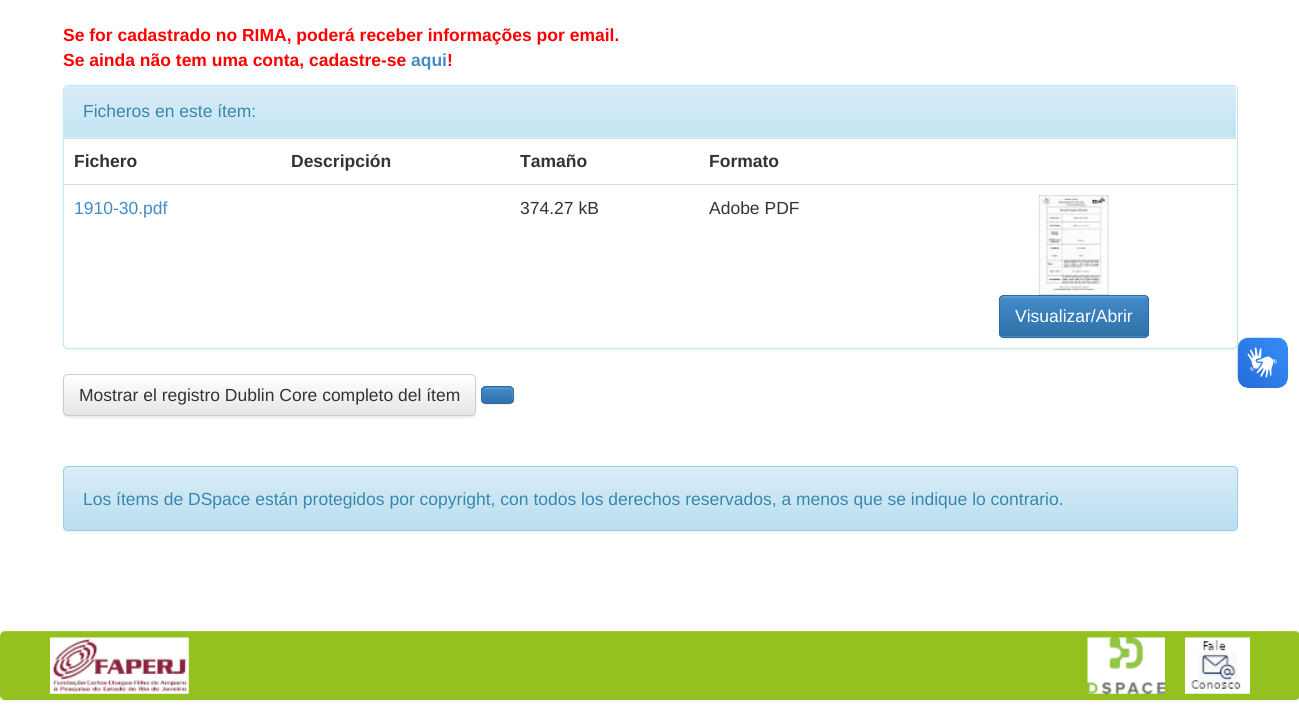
import math
import cairo

surface = cairo.ImageSurface(cairo.FORMAT_RGB24, 1299, 724)
ctx = cairo.Context(surface)
options = cairo.FontOptions()
options.set_hint_metrics(cairo.HINT_METRICS_OFF)
options.set_hint_style(cairo.HINT_STYLE_NONE)
ctx.set_font_options(options)
ctx.set_miter_limit(4)


def round_rect(x, y, w, h, r):
    ctx.new_sub_path()
    for i, (u, v) in enumerate([(x + w - r, y + h - r), (x + r, y + h - r), (x + r, y + r), (x + w - r, y + r)]):
        ctx.arc(u, v, r, i * math.pi / 2, (i + 1) * math.pi / 2)
    ctx.close_path()


def shadow(x, y, w, h, r, blur, alpha):
    ctx.push_group_with_content(cairo.CONTENT_ALPHA)
    ctx.set_operator(cairo.OPERATOR_SOURCE)
    for i in range(15, -16, -2):
        e = blur * i / 6
        if min(w, h) + 2 * e > 0:
            ctx.set_source_rgba(0, 0, 0, alpha * math.erfc((i - 1) / 8.5) / 2)
            round_rect(x - e, y - e, w + 2 * e, h + 2 * e, max(0, min(r + e + blur * .6, min(w, h) / 2 + e)))
            ctx.fill()
    ctx.mask(ctx.pop_group())


def picture(path, x, y, w, h):
    ctx.save()
    ctx.set_source_surface(cairo.ImageSurface.create_from_png(path), x, y)
    ctx.rectangle(x, y, w, h)
    ctx.fill()
    ctx.restore()


ctx.set_source_rgb(1, 1, 1)
ctx.paint()
ctx.select_font_face("Liberation Sans", cairo.FONT_SLANT_NORMAL, cairo.FONT_WEIGHT_BOLD)
ctx.set_font_size(17.5)
ctx.set_source_rgb(1, 0, 0)
ctx.move_to(63, 41)
ctx.show_text("Se for cadastrado no RIMA, poderá receber informações por email.")
ctx.move_to(63, 66)
ctx.show_text("Se ainda não tem uma conta, cadastre-se")
ctx.set_source_rgb(0.259, 0.545, 0.792)
ctx.move_to(411, 66)
ctx.show_text("aqui")
ctx.set_source_rgb(1, 0, 0)
ctx.move_to(447, 66)
ctx.show_text("!")
ctx.set_source_rgb(0, 0, 0)
shadow(63, 86, 1175, 264, 5, 1, 0.05)
ctx.set_source_rgb(1, 1, 1)
round_rect(63.5, 85.5, 1174, 263, 4.5)
ctx.fill_preserve()
ctx.set_source_rgb(0.737, 0.91, 0.945)
ctx.set_line_width(1)
ctx.stroke()
ctx.set_source_rgb(0.851, 0.929, 0.969)
ctx.new_path()
ctx.move_to(68, 86)
ctx.line_to(1232, 86)
ctx.curve_to(1234, 86, 1236, 88, 1236, 90)
ctx.line_to(1236, 138)
ctx.line_to(64, 138)
ctx.line_to(64, 90)
ctx.curve_to(64, 88, 66, 86, 68, 86)
ctx.close_path()
ctx.fill()
gradient = cairo.LinearGradient(650, 86, 650, 136)
gradient.add_color_stop_rgba(0, 0.851, 0.929, 0.969, 1)
gradient.add_color_stop_rgba(1, 0.769, 0.89, 0.953, 1)
ctx.set_source(gradient)
ctx.new_path()
ctx.move_to(68, 86)
ctx.line_to(1232, 86)
ctx.curve_to(1234, 86, 1236, 88, 1236, 90)
ctx.line_to(1236, 136)
ctx.line_to(64, 136)
ctx.line_to(64, 90)
ctx.curve_to(64, 88, 66, 86, 68, 86)
ctx.close_path()
ctx.fill()
ctx.set_source_rgb(0.737, 0.91, 0.945)
ctx.rectangle(64, 136, 1172, 1)
ctx.fill()
ctx.select_font_face("Liberation Sans")
ctx.set_source_rgb(0.227, 0.529, 0.678)
ctx.move_to(83, 117)
ctx.show_text("Ficheros en este ítem:")
ctx.set_source_rgb(0.867, 0.867, 0.867)
ctx.rectangle(64, 138, 1174, 1)
ctx.fill()
ctx.select_font_face("Liberation Sans", cairo.FONT_SLANT_NORMAL, cairo.FONT_WEIGHT_BOLD)
ctx.set_source_rgb(0.2, 0.2, 0.2)
ctx.move_to(74, 167)
ctx.show_text("Fichero")
ctx.move_to(291, 167)
ctx.show_text("Descripción")
ctx.move_to(520, 167)
ctx.show_text("Tamaño")
ctx.move_to(709, 167)
ctx.show_text("Formato")
ctx.select_font_face("Liberation Sans")
ctx.set_source_rgb(0.259, 0.545, 0.792)
ctx.move_to(74, 214)
ctx.show_text("1910-30.pdf")
ctx.set_source_rgb(0.2, 0.2, 0.2)
ctx.move_to(520, 214)
ctx.show_text("374.27 kB")
ctx.move_to(709, 214)
ctx.show_text("Adobe PDF")
ctx.set_source_rgb(0.867, 0.867, 0.867)
ctx.rectangle(64, 184, 1174, 1)
ctx.fill()
picture("img1.png", 1038, 195, 71, 100)
ctx.set_source_rgb(0, 0, 0)
shadow(999, 296, 150, 43, 5, 0.5, 0.07)
ctx.set_source_rgb(0.259, 0.545, 0.792)
round_rect(999, 295, 150, 43, 5)
ctx.fill()
ctx.save()
round_rect(999, 295, 150, 43, 5)
ctx.clip()
gradient = cairo.LinearGradient(1074, 296, 1074, 336)
gradient.add_color_stop_rgba(0, 0.259, 0.545, 0.792, 1)
gradient.add_color_stop_rgba(1, 0.188, 0.443, 0.663, 1)
ctx.set_source(gradient)
ctx.rectangle(999, 296, 150, 40)
ctx.fill()
ctx.restore()
ctx.set_source_rgb(0.369, 0.612, 0.824)
ctx.new_path()
ctx.move_to(1004, 298)
ctx.line_to(1144, 298)
ctx.curve_to(1146, 298, 1148, 299, 1148, 301)
ctx.curve_to(1148, 298, 1147, 296, 1144, 296)
ctx.line_to(1003, 296)
ctx.curve_to(1001, 297, 1000, 299, 1000, 301)
ctx.curve_to(1000, 299, 1002, 298, 1004, 298)
ctx.close_path()
ctx.fill()
round_rect(999.5, 295.5, 149, 42, 4.5)
ctx.set_source_rgb(0.176, 0.424, 0.635)
ctx.stroke()
ctx.set_source_rgb(1, 1, 1)
ctx.move_to(1015, 322)
ctx.show_text("Visualizar/Abrir")
ctx.set_source_rgb(0, 0, 0)
shadow(63, 375, 413, 43, 5, 0.5, 0.07)
ctx.save()
round_rect(63, 374, 413, 42, 5)
ctx.clip()
gradient = cairo.LinearGradient(269, 375, 269, 415)
gradient.add_color_stop_rgba(0, 1, 1, 1, 1)
gradient.add_color_stop_rgba(1, 0.902, 0.902, 0.902, 1)
ctx.set_source(gradient)
ctx.rectangle(63, 375, 413, 40)
ctx.fill()
ctx.restore()
round_rect(63.5, 374.5, 412, 41, 4.5)
ctx.set_source_rgb(0.8, 0.8, 0.8)
ctx.stroke()
ctx.set_source_rgb(0.2, 0.2, 0.2)
ctx.move_to(79, 401)
ctx.show_text("Mostrar el registro Dublin Core completo del ítem")
ctx.set_source_rgb(0, 0, 0)
shadow(481, 388, 33, 17, 5, 0.5, 0.07)
ctx.set_source_rgb(0.259, 0.545, 0.792)
round_rect(481, 386, 33, 18, 5)
ctx.fill()
ctx.save()
round_rect(481, 386, 33, 18, 5)
ctx.clip()
gradient = cairo.LinearGradient(498, 388, 498, 403)
gradient.add_color_stop_rgba(0, 0.259, 0.545, 0.792, 1)
gradient.add_color_stop_rgba(1, 0.188, 0.443, 0.663, 1)
ctx.set_source(gradient)
ctx.rectangle(481, 388, 33, 15)
ctx.fill()
ctx.restore()
ctx.set_source_rgba(1, 1, 1, 0.15)
ctx.new_path()
ctx.move_to(486, 389)
ctx.line_to(501.5, 389)
ctx.curve_to(511, 389, 512, 387, 512, 396)
ctx.curve_to(512, 398, 512.5, 400, 511.5, 402)
ctx.curve_to(512.5, 401.5, 513, 400, 513, 399)
ctx.line_to(513, 392)
ctx.curve_to(513, 390, 511, 388, 509, 388)
ctx.line_to(487, 388)
ctx.curve_to(486, 388, 484.5, 388.5, 484, 389.5)
ctx.close_path()
ctx.fill()
round_rect(481.5, 386.5, 32, 17, 4.5)
ctx.set_source_rgb(0.176, 0.424, 0.635)
ctx.stroke()
ctx.set_source_rgb(0, 0, 0)
shadow(63, 468, 1175, 65, 5, 1, 0.05)
ctx.set_source_rgb(0.851, 0.929, 0.969)
round_rect(63, 466, 1175, 65, 5)
ctx.fill()
ctx.save()
round_rect(63, 466, 1175, 65, 5)
ctx.clip()
gradient = cairo.LinearGradient(650, 467, 650, 530)
gradient.add_color_stop_rgba(0, 0.851, 0.929, 0.969, 1)
gradient.add_color_stop_rgba(1, 0.725, 0.871, 0.941, 1)
ctx.set_source(gradient)
ctx.rectangle(63, 468, 1175, 62)
ctx.fill()
ctx.restore()
ctx.set_source_rgb(0.886, 0.949, 0.976)
ctx.new_path()
ctx.move_to(68, 469)
ctx.line_to(1232, 469)
ctx.curve_to(1234, 469, 1235, 469, 1236, 470)
ctx.curve_to(1235, 469, 1234, 468, 1232, 468)
ctx.line_to(68, 468)
ctx.curve_to(66, 468, 65, 469, 64, 470)
ctx.curve_to(65, 469, 66, 469, 68, 469)
ctx.close_path()
ctx.fill()
round_rect(63.5, 466.5, 1174, 64, 4.5)
ctx.set_source_rgb(0.604, 0.812, 0.918)
ctx.stroke()
ctx.set_source_rgb(0.227, 0.529, 0.678)
ctx.move_to(83, 505)
ctx.show_text("Los ítems de DSpace están protegidos por copyright, con todos los derechos reservados, a menos que se indique lo contrario.")
picture("img2.png", 1237, 337, 51, 51)
picture("img3.png", 1238, 338, 50, 50)
ctx.set_source_rgb(0, 0, 0)
shadow(0, 633, 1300, 68, 5, 3, 0.07)
gradient = cairo.LinearGradient(650, 631, 650, 700)
gradient.add_color_stop_rgba(0, 0.584, 0.757, 0.122, 1)
gradient.add_color_stop_rgba(1, 0.584, 0.757, 0.125, 1)
ctx.set_source(gradient)
round_rect(0, 631, 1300, 69, 5)
ctx.fill()
ctx.set_source_rgba(1, 1, 1, 0.15)
ctx.new_path()
ctx.move_to(5, 632)
ctx.line_to(1295, 632)
ctx.curve_to(1298, 632, 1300, 635, 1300, 638)
ctx.line_to(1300, 636)
ctx.curve_to(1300, 633, 1298, 631, 1295, 631)
ctx.line_to(5, 631)
ctx.curve_to(2, 631, 0, 633, 0, 636)
ctx.line_to(0, 638)
ctx.curve_to(0, 635, 2, 632, 5, 632)
ctx.close_path()
ctx.fill()
picture("img4.png", 50, 637, 139, 57)
picture("img5.png", 1087, 637, 78, 57)
picture("img6.png", 1185, 637, 65, 57)
surface.write_to_png("page.png")
